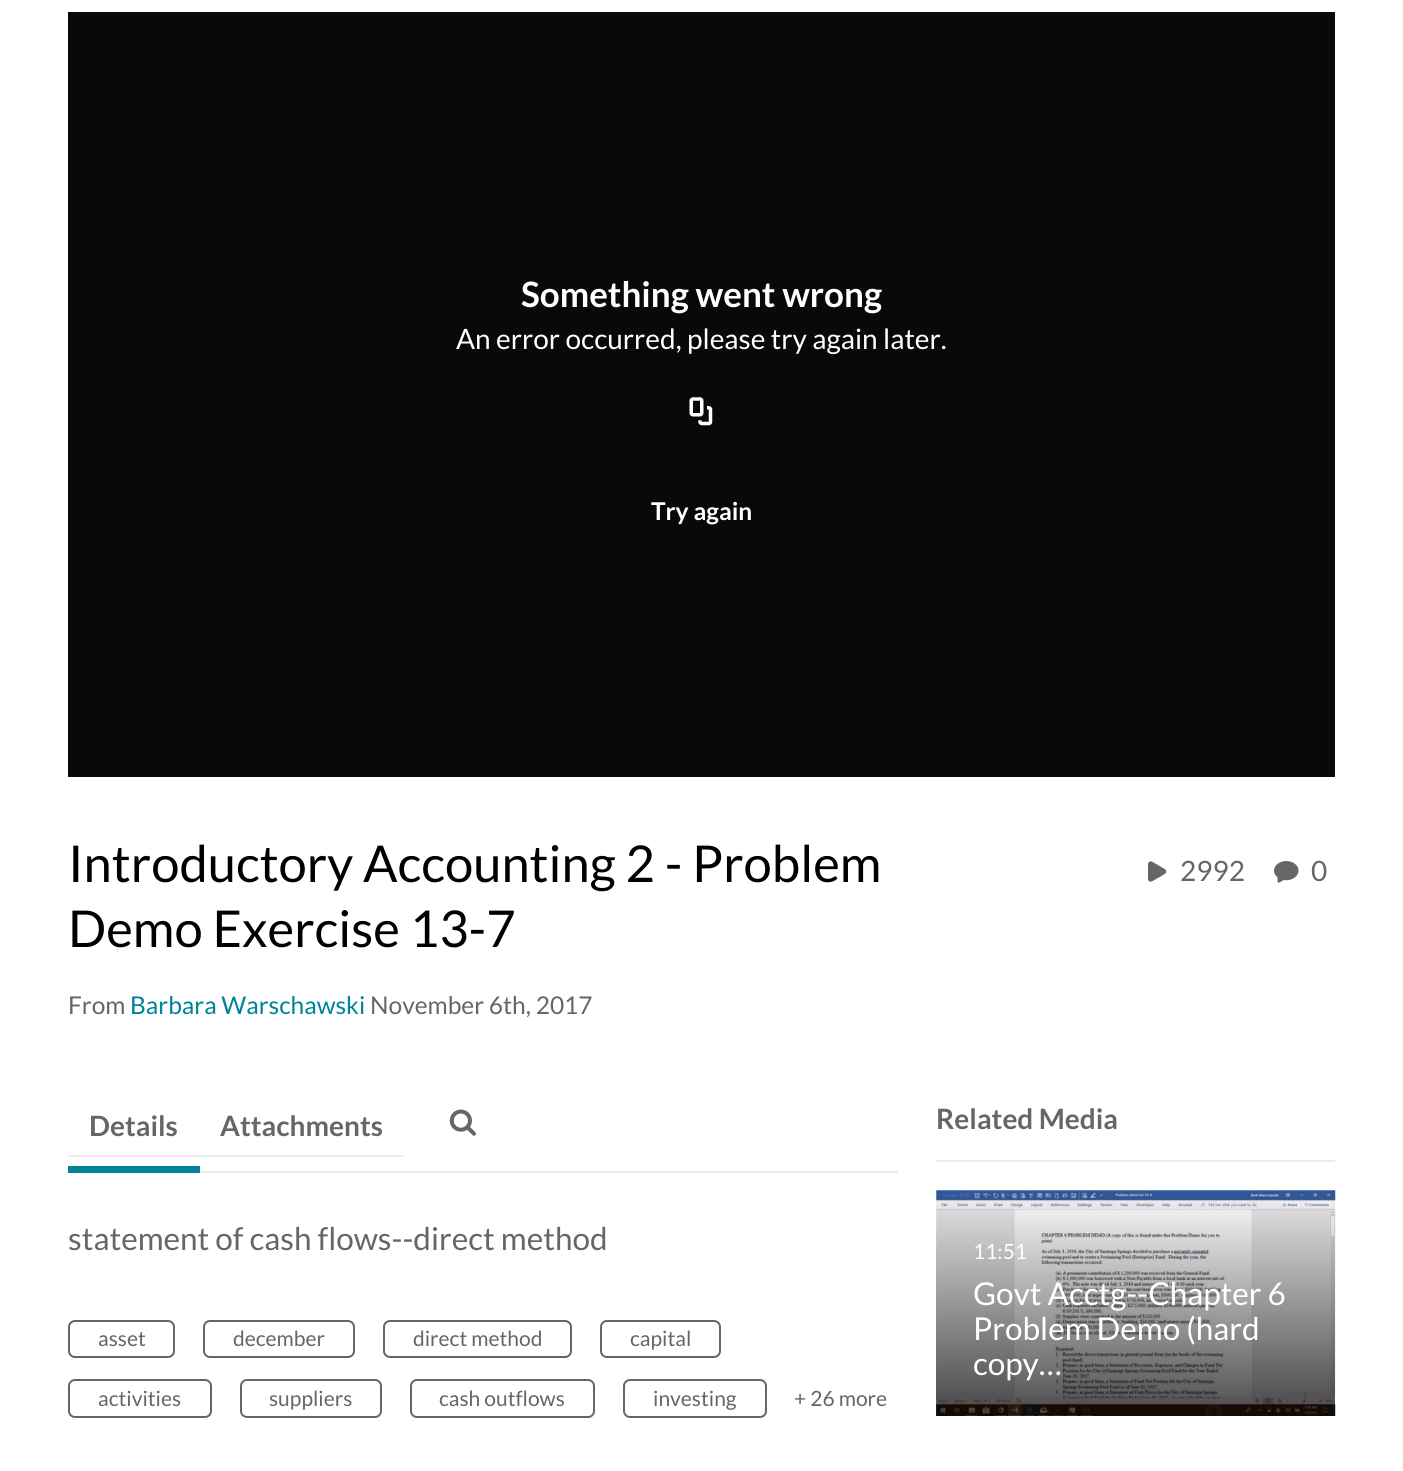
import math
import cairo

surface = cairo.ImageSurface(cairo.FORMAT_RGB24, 1403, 1471)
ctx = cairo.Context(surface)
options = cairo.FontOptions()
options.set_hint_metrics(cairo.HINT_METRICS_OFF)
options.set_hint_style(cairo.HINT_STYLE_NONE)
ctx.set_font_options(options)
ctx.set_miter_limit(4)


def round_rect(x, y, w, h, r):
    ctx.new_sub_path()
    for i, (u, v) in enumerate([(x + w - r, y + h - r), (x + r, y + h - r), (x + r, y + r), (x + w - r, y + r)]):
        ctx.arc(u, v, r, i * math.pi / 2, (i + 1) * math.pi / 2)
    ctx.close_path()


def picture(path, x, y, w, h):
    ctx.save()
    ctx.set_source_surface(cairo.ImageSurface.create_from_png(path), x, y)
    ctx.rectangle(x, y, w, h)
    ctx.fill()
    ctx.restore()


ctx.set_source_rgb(1, 1, 1)
ctx.paint()
ctx.set_source_rgb(0.039, 0.039, 0.039)
ctx.rectangle(68, 12, 1267, 765)
ctx.fill()
ctx.select_font_face("Lato", cairo.FONT_SLANT_NORMAL, cairo.FONT_WEIGHT_BOLD)
ctx.set_font_size(35)
ctx.set_source_rgb(1, 1, 1)
ctx.move_to(521, 307)
ctx.show_text("Something went wrong")
ctx.select_font_face("Lato")
ctx.set_font_size(28)
ctx.move_to(456, 349)
ctx.show_text("An error occurred, please try again later.")
picture("img1.png", 689, 397, 24, 29)
ctx.select_font_face("Lato", cairo.FONT_SLANT_NORMAL, cairo.FONT_WEIGHT_BOLD)
ctx.set_font_size(24.5)
ctx.move_to(651, 520)
ctx.show_text("Try again")
ctx.select_font_face("Lato")
ctx.set_font_size(50.75)
ctx.set_source_rgb(0, 0, 0)
ctx.move_to(68, 882)
ctx.show_text("Introductory Accounting 2 - Problem")
ctx.move_to(68, 947)
ctx.show_text("Demo Exercise 13-7")
ctx.set_font_size(24.5)
ctx.set_source_rgb(0.4, 0.4, 0.4)
ctx.move_to(68, 1014)
ctx.show_text("From")
ctx.set_source_rgb(0, 0.51, 0.592)
ctx.move_to(130, 1014)
ctx.show_text("Barbara Warschawski")
ctx.set_source_rgb(0.4, 0.4, 0.4)
ctx.move_to(370, 1014)
ctx.show_text("November 6th, 2017")
picture("img2.png", 1148, 861, 19, 21)
ctx.set_font_size(28)
ctx.move_to(1180, 881)
ctx.show_text("2992")
picture("img3.png", 1274, 861, 25, 22)
ctx.move_to(1311, 881)
ctx.show_text("0")
ctx.set_source_rgb(0.922, 0.922, 0.922)
ctx.rectangle(200, 1171, 698, 2)
ctx.fill()
ctx.rectangle(68, 1155, 336, 2)
ctx.fill()
ctx.set_source_rgb(0, 0.51, 0.592)
ctx.rectangle(68, 1166, 132, 7)
ctx.fill()
ctx.select_font_face("Lato", cairo.FONT_SLANT_NORMAL, cairo.FONT_WEIGHT_BOLD)
ctx.set_source_rgb(0.4, 0.4, 0.4)
ctx.move_to(89, 1136)
ctx.show_text("Details")
ctx.move_to(220, 1136)
ctx.show_text("Attachments")
picture("img4.png", 449, 1109, 27, 27)
ctx.select_font_face("Lato")
ctx.set_font_size(31.5)
ctx.move_to(68, 1250)
ctx.show_text("statement of cash flows--direct method")
round_rect(69, 1321, 105, 36, 6)
ctx.stroke()
ctx.set_font_size(21)
ctx.move_to(98, 1346)
ctx.show_text("asset")
round_rect(204, 1321, 150, 36, 6)
ctx.stroke()
ctx.move_to(233, 1346)
ctx.show_text("december")
round_rect(384, 1321, 187, 36, 6)
ctx.stroke()
ctx.move_to(413, 1346)
ctx.show_text("direct method")
round_rect(601, 1321, 119, 36, 6)
ctx.stroke()
ctx.move_to(630, 1346)
ctx.show_text("capital")
round_rect(69, 1380, 142, 37, 6)
ctx.stroke()
ctx.move_to(98, 1406)
ctx.show_text("activities")
round_rect(241, 1380, 140, 37, 6)
ctx.stroke()
ctx.move_to(269, 1406)
ctx.show_text("suppliers")
round_rect(411, 1380, 183, 37, 6)
ctx.stroke()
ctx.move_to(439, 1406)
ctx.show_text("cash outflows")
round_rect(624, 1380, 142, 37, 6)
ctx.stroke()
ctx.move_to(653, 1406)
ctx.show_text("investing")
ctx.move_to(794, 1406)
ctx.show_text("+ 26 more")
ctx.set_source_rgb(0.922, 0.922, 0.922)
ctx.rectangle(936, 1160, 399, 2)
ctx.fill()
ctx.select_font_face("Lato", cairo.FONT_SLANT_NORMAL, cairo.FONT_WEIGHT_BOLD)
ctx.set_font_size(28)
ctx.set_source_rgb(0.4, 0.4, 0.4)
ctx.move_to(936, 1129)
ctx.show_text("Related Media")
picture("img5.png", 936, 1190, 400, 226)
gradient = cairo.LinearGradient(1136, 1190, 1136, 1416)
gradient.add_color_stop_rgba(0, 0, 0, 0, 0)
gradient.add_color_stop_rgba(1, 0, 0, 0, 0.7)
ctx.set_source(gradient)
ctx.rectangle(936, 1197, 399, 219)
ctx.fill()
ctx.select_font_face("Lato")
ctx.set_font_size(21)
ctx.set_source_rgb(1, 1, 1)
ctx.move_to(973, 1259)
ctx.show_text("11:51")
ctx.set_font_size(31.5)
ctx.move_to(973, 1305)
ctx.show_text("Govt Acctg--Chapter 6")
ctx.move_to(973, 1340)
ctx.show_text("Problem Demo (hard")
ctx.move_to(973, 1375)
ctx.show_text("copy…")
surface.write_to_png("page.png")
